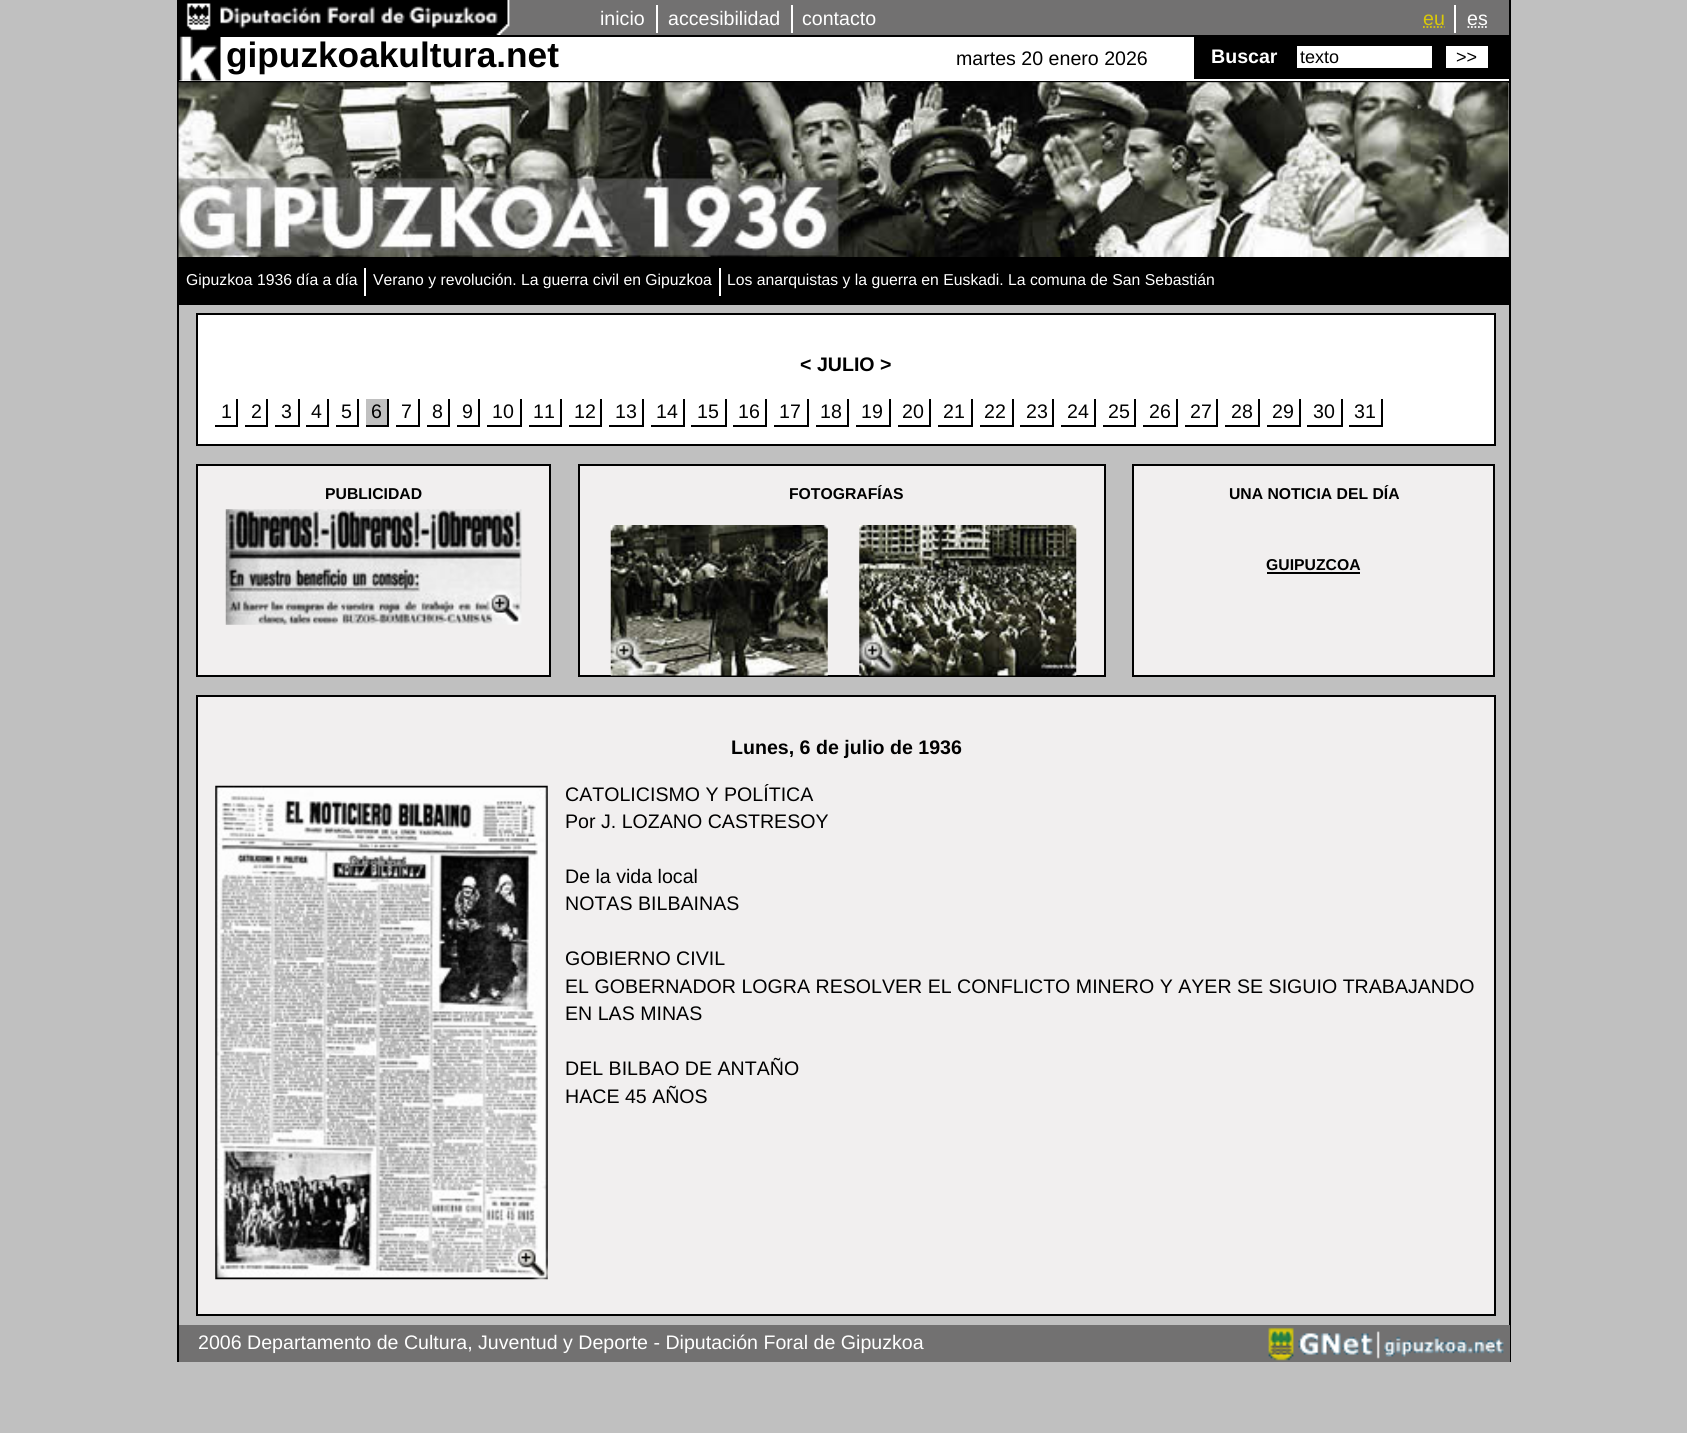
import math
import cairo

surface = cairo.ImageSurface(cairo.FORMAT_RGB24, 1687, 1433)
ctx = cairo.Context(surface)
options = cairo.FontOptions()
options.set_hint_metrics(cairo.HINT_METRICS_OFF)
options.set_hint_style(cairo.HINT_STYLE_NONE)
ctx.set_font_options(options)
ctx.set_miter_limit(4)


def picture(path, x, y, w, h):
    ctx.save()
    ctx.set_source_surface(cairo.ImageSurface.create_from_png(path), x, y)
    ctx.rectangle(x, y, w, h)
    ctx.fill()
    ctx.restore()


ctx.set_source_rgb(0.753, 0.753, 0.753)
ctx.paint()
ctx.set_source_rgb(0, 0, 0)
ctx.rectangle(1509, 0, 2, 1362)
ctx.fill()
ctx.rectangle(177, 0, 2, 1362)
ctx.fill()
ctx.rectangle(179, 35, 1330, 2)
ctx.fill()
picture("img1.png", 179, 0, 332, 35)
ctx.set_source_rgb(0.447, 0.443, 0.443)
ctx.rectangle(511, 0, 998, 35)
ctx.fill()
ctx.set_source_rgb(1, 1, 1)
ctx.rectangle(656, 5, 2, 28)
ctx.fill()
ctx.select_font_face("Liberation Sans")
ctx.set_font_size(19.6)
ctx.move_to(600, 25)
ctx.show_text("inicio")
ctx.rectangle(791, 5, 2, 28)
ctx.fill()
ctx.move_to(668, 25)
ctx.show_text("accesibilidad")
ctx.move_to(802, 25)
ctx.show_text("contacto")
ctx.rectangle(1454, 5, 2, 28)
ctx.fill()
ctx.set_source_rgb(0.851, 0.784, 0.035)
ctx.move_to(1423, 25)
ctx.show_text("eu")
ctx.new_path()
ctx.move_to(1423, 27)
ctx.line_to(1444.5, 27)
ctx.set_line_width(1.8)
ctx.set_dash([1.75, 1.75])
ctx.stroke()
ctx.set_source_rgb(1, 1, 1)
ctx.move_to(1467, 25)
ctx.show_text("es")
ctx.new_path()
ctx.move_to(1467.5, 27)
ctx.line_to(1488, 27)
ctx.stroke()
ctx.rectangle(179, 37, 1330, 44)
ctx.fill()
ctx.set_source_rgb(0, 0, 0)
ctx.rectangle(179, 81, 1330, 2)
ctx.fill()
picture("img2.png", 179, 36, 42, 45)
ctx.select_font_face("Liberation Sans", cairo.FONT_SLANT_NORMAL, cairo.FONT_WEIGHT_BOLD)
ctx.set_font_size(35.25)
ctx.move_to(226, 67)
ctx.show_text("gipuzkoakultura.net")
ctx.select_font_face("Liberation Sans")
ctx.set_font_size(19.6)
ctx.move_to(956, 65)
ctx.show_text("martes 20 enero 2026")
ctx.rectangle(1194, 37, 315, 42)
ctx.fill()
ctx.select_font_face("Liberation Sans", cairo.FONT_SLANT_NORMAL, cairo.FONT_WEIGHT_BOLD)
ctx.set_source_rgb(1, 1, 1)
ctx.move_to(1211, 63)
ctx.show_text("Buscar")
ctx.rectangle(1297, 46, 135, 22)
ctx.fill()
ctx.select_font_face("Liberation Sans")
ctx.set_font_size(18)
ctx.set_source_rgb(0, 0, 0)
ctx.move_to(1300, 63)
ctx.show_text("texto")
ctx.set_source_rgb(1, 1, 1)
ctx.rectangle(1446, 46, 42, 22)
ctx.fill()
ctx.set_source_rgb(0, 0, 0)
ctx.move_to(1456, 63)
ctx.show_text(">>")
picture("img3.png", 178, 82, 1331, 176)
ctx.rectangle(179, 257, 1330, 48)
ctx.fill()
ctx.set_source_rgb(1, 1, 1)
ctx.rectangle(364, 268, 2, 28)
ctx.fill()
ctx.set_font_size(15.75)
ctx.move_to(186, 285)
ctx.show_text("Gipuzkoa 1936 día a día")
ctx.rectangle(719, 268, 2, 28)
ctx.fill()
ctx.move_to(373, 285)
ctx.show_text("Verano y revolución. La guerra civil en Gipuzkoa")
ctx.move_to(727, 285)
ctx.show_text("Los anarquistas y la guerra en Euskadi. La comuna de San Sebastián")
ctx.rectangle(197, 314, 1298, 131)
ctx.fill_preserve()
ctx.set_source_rgb(0, 0, 0)
ctx.set_line_width(2)
ctx.set_dash([])
ctx.stroke()
ctx.select_font_face("Liberation Sans", cairo.FONT_SLANT_NORMAL, cairo.FONT_WEIGHT_BOLD)
ctx.set_font_size(19.6)
ctx.move_to(800, 371)
ctx.show_text("< JULIO >")
ctx.rectangle(236, 399, 2, 28)
ctx.fill()
ctx.rectangle(215, 425, 23, 2)
ctx.fill()
ctx.select_font_face("Liberation Sans")
ctx.move_to(221, 418)
ctx.show_text("1")
ctx.rectangle(266, 399, 2, 28)
ctx.fill()
ctx.rectangle(245, 425, 23, 2)
ctx.fill()
ctx.move_to(251, 418)
ctx.show_text("2")
ctx.rectangle(298, 399, 2, 28)
ctx.fill()
ctx.rectangle(275, 425, 24, 2)
ctx.fill()
ctx.move_to(281, 418)
ctx.show_text("3")
ctx.rectangle(327, 399, 2, 28)
ctx.fill()
ctx.rectangle(306, 425, 23, 2)
ctx.fill()
ctx.move_to(311, 418)
ctx.show_text("4")
ctx.rectangle(357, 399, 2, 28)
ctx.fill()
ctx.rectangle(336, 425, 23, 2)
ctx.fill()
ctx.move_to(341, 418)
ctx.show_text("5")
ctx.set_source_rgb(0.753, 0.753, 0.753)
ctx.rectangle(366, 399, 21, 26)
ctx.fill()
ctx.set_source_rgb(0, 0, 0)
ctx.rectangle(387, 399, 2, 28)
ctx.fill()
ctx.rectangle(366, 425, 23, 2)
ctx.fill()
ctx.move_to(371, 418)
ctx.show_text("6")
ctx.rectangle(418, 399, 2, 28)
ctx.fill()
ctx.rectangle(396, 425, 24, 2)
ctx.fill()
ctx.move_to(401, 418)
ctx.show_text("7")
ctx.rectangle(448, 399, 2, 28)
ctx.fill()
ctx.rectangle(427, 425, 23, 2)
ctx.fill()
ctx.move_to(432, 418)
ctx.show_text("8")
ctx.rectangle(478, 399, 2, 28)
ctx.fill()
ctx.rectangle(457, 425, 23, 2)
ctx.fill()
ctx.move_to(462, 418)
ctx.show_text("9")
ctx.rectangle(520, 399, 2, 28)
ctx.fill()
ctx.rectangle(487, 425, 35, 2)
ctx.fill()
ctx.move_to(492, 418)
ctx.show_text("10")
ctx.rectangle(560, 399, 2, 28)
ctx.fill()
ctx.rectangle(529, 425, 33, 2)
ctx.fill()
ctx.move_to(533, 418)
ctx.show_text("11")
ctx.rectangle(600, 399, 2, 28)
ctx.fill()
ctx.rectangle(569, 425, 33, 2)
ctx.fill()
ctx.move_to(574, 418)
ctx.show_text("12")
ctx.rectangle(642, 399, 2, 28)
ctx.fill()
ctx.rectangle(609, 425, 35, 2)
ctx.fill()
ctx.move_to(615, 418)
ctx.show_text("13")
ctx.rectangle(683, 399, 2, 28)
ctx.fill()
ctx.rectangle(651, 425, 33, 2)
ctx.fill()
ctx.move_to(656, 418)
ctx.show_text("14")
ctx.rectangle(725, 399, 2, 28)
ctx.fill()
ctx.rectangle(691, 425, 35, 2)
ctx.fill()
ctx.move_to(697, 418)
ctx.show_text("15")
ctx.rectangle(765, 399, 2, 28)
ctx.fill()
ctx.rectangle(733, 425, 34, 2)
ctx.fill()
ctx.move_to(738, 418)
ctx.show_text("16")
ctx.rectangle(807, 399, 2, 28)
ctx.fill()
ctx.rectangle(774, 425, 35, 2)
ctx.fill()
ctx.move_to(779, 418)
ctx.show_text("17")
ctx.rectangle(847, 399, 2, 28)
ctx.fill()
ctx.rectangle(816, 425, 33, 2)
ctx.fill()
ctx.move_to(820, 418)
ctx.show_text("18")
ctx.rectangle(889, 399, 2, 28)
ctx.fill()
ctx.rectangle(856, 425, 35, 2)
ctx.fill()
ctx.move_to(861, 418)
ctx.show_text("19")
ctx.rectangle(929, 399, 2, 28)
ctx.fill()
ctx.rectangle(898, 425, 33, 2)
ctx.fill()
ctx.move_to(902, 418)
ctx.show_text("20")
ctx.rectangle(971, 399, 2, 28)
ctx.fill()
ctx.rectangle(938, 425, 35, 2)
ctx.fill()
ctx.move_to(943, 418)
ctx.show_text("21")
ctx.rectangle(1012, 399, 2, 28)
ctx.fill()
ctx.rectangle(980, 425, 33, 2)
ctx.fill()
ctx.move_to(984, 418)
ctx.show_text("22")
ctx.rectangle(1052, 399, 2, 28)
ctx.fill()
ctx.rectangle(1020, 425, 34, 2)
ctx.fill()
ctx.move_to(1026, 418)
ctx.show_text("23")
ctx.rectangle(1094, 399, 2, 28)
ctx.fill()
ctx.rectangle(1061, 425, 35, 2)
ctx.fill()
ctx.move_to(1067, 418)
ctx.show_text("24")
ctx.rectangle(1134, 399, 2, 28)
ctx.fill()
ctx.rectangle(1103, 425, 33, 2)
ctx.fill()
ctx.move_to(1108, 418)
ctx.show_text("25")
ctx.rectangle(1176, 399, 2, 28)
ctx.fill()
ctx.rectangle(1143, 425, 35, 2)
ctx.fill()
ctx.move_to(1149, 418)
ctx.show_text("26")
ctx.rectangle(1216, 399, 2, 28)
ctx.fill()
ctx.rectangle(1185, 425, 33, 2)
ctx.fill()
ctx.move_to(1190, 418)
ctx.show_text("27")
ctx.rectangle(1258, 399, 2, 28)
ctx.fill()
ctx.rectangle(1225, 425, 35, 2)
ctx.fill()
ctx.move_to(1231, 418)
ctx.show_text("28")
ctx.rectangle(1299, 399, 2, 28)
ctx.fill()
ctx.rectangle(1267, 425, 33, 2)
ctx.fill()
ctx.move_to(1272, 418)
ctx.show_text("29")
ctx.rectangle(1341, 399, 2, 28)
ctx.fill()
ctx.rectangle(1307, 425, 35, 2)
ctx.fill()
ctx.move_to(1313, 418)
ctx.show_text("30")
ctx.rectangle(1381, 399, 2, 28)
ctx.fill()
ctx.rectangle(1349, 425, 34, 2)
ctx.fill()
ctx.move_to(1354, 418)
ctx.show_text("31")
ctx.set_source_rgb(0.945, 0.937, 0.937)
ctx.rectangle(197, 465, 353, 211)
ctx.fill_preserve()
ctx.set_source_rgb(0, 0, 0)
ctx.stroke()
ctx.select_font_face("Liberation Sans", cairo.FONT_SLANT_NORMAL, cairo.FONT_WEIGHT_BOLD)
ctx.set_font_size(15.75)
ctx.move_to(325, 499)
ctx.show_text("PUBLICIDAD")
picture("img4.png", 225, 509, 297, 116)
ctx.set_source_rgb(0.945, 0.937, 0.937)
ctx.rectangle(579, 465, 526, 211)
ctx.fill_preserve()
ctx.set_source_rgb(0, 0, 0)
ctx.stroke()
ctx.move_to(789, 499)
ctx.show_text("FOTOGRAFÍAS")
picture("img5.png", 610, 525, 218, 151)
picture("img6.png", 859, 525, 218, 151)
ctx.set_source_rgb(0.945, 0.937, 0.937)
ctx.rectangle(1133, 465, 361, 211)
ctx.fill_preserve()
ctx.set_source_rgb(0, 0, 0)
ctx.stroke()
ctx.move_to(1229, 499)
ctx.show_text("UNA NOTICIA DEL DÍA")
ctx.move_to(1266, 570)
ctx.show_text("GUIPUZCOA")
ctx.rectangle(1267, 572, 93, 2)
ctx.fill()
ctx.set_source_rgb(0.945, 0.937, 0.937)
ctx.rectangle(197, 696, 1298, 619)
ctx.fill_preserve()
ctx.set_source_rgb(0, 0, 0)
ctx.stroke()
ctx.set_font_size(19.6)
ctx.move_to(731, 754)
ctx.show_text("Lunes, 6 de julio de 1936")
picture("img7.png", 215, 785, 333, 495)
ctx.select_font_face("Liberation Sans")
ctx.move_to(565, 801)
ctx.show_text("CATOLICISMO Y POLÍTICA")
ctx.move_to(565, 828)
ctx.show_text("Por J. LOZANO CASTRESOY")
ctx.move_to(565, 883)
ctx.show_text("De la vida local")
ctx.move_to(565, 910)
ctx.show_text("NOTAS BILBAINAS")
ctx.move_to(565, 965)
ctx.show_text("GOBIERNO CIVIL")
ctx.move_to(565, 993)
ctx.show_text("EL GOBERNADOR LOGRA RESOLVER EL CONFLICTO MINERO Y AYER SE SIGUIO TRABAJANDO")
ctx.move_to(565, 1020)
ctx.show_text("EN LAS MINAS")
ctx.move_to(565, 1075)
ctx.show_text("DEL BILBAO DE ANTAÑO")
ctx.move_to(565, 1103)
ctx.show_text("HACE 45 AÑOS")
ctx.set_source_rgb(0.447, 0.443, 0.443)
ctx.rectangle(179, 1325, 1331, 37)
ctx.fill()
ctx.set_source_rgb(1, 1, 1)
ctx.move_to(198, 1349)
ctx.show_text("2006 Departamento de Cultura, Juventud y Deporte - Diputación Foral de Gipuzkoa")
picture("img8.png", 1268, 1327, 236, 34)
surface.write_to_png("page.png")
